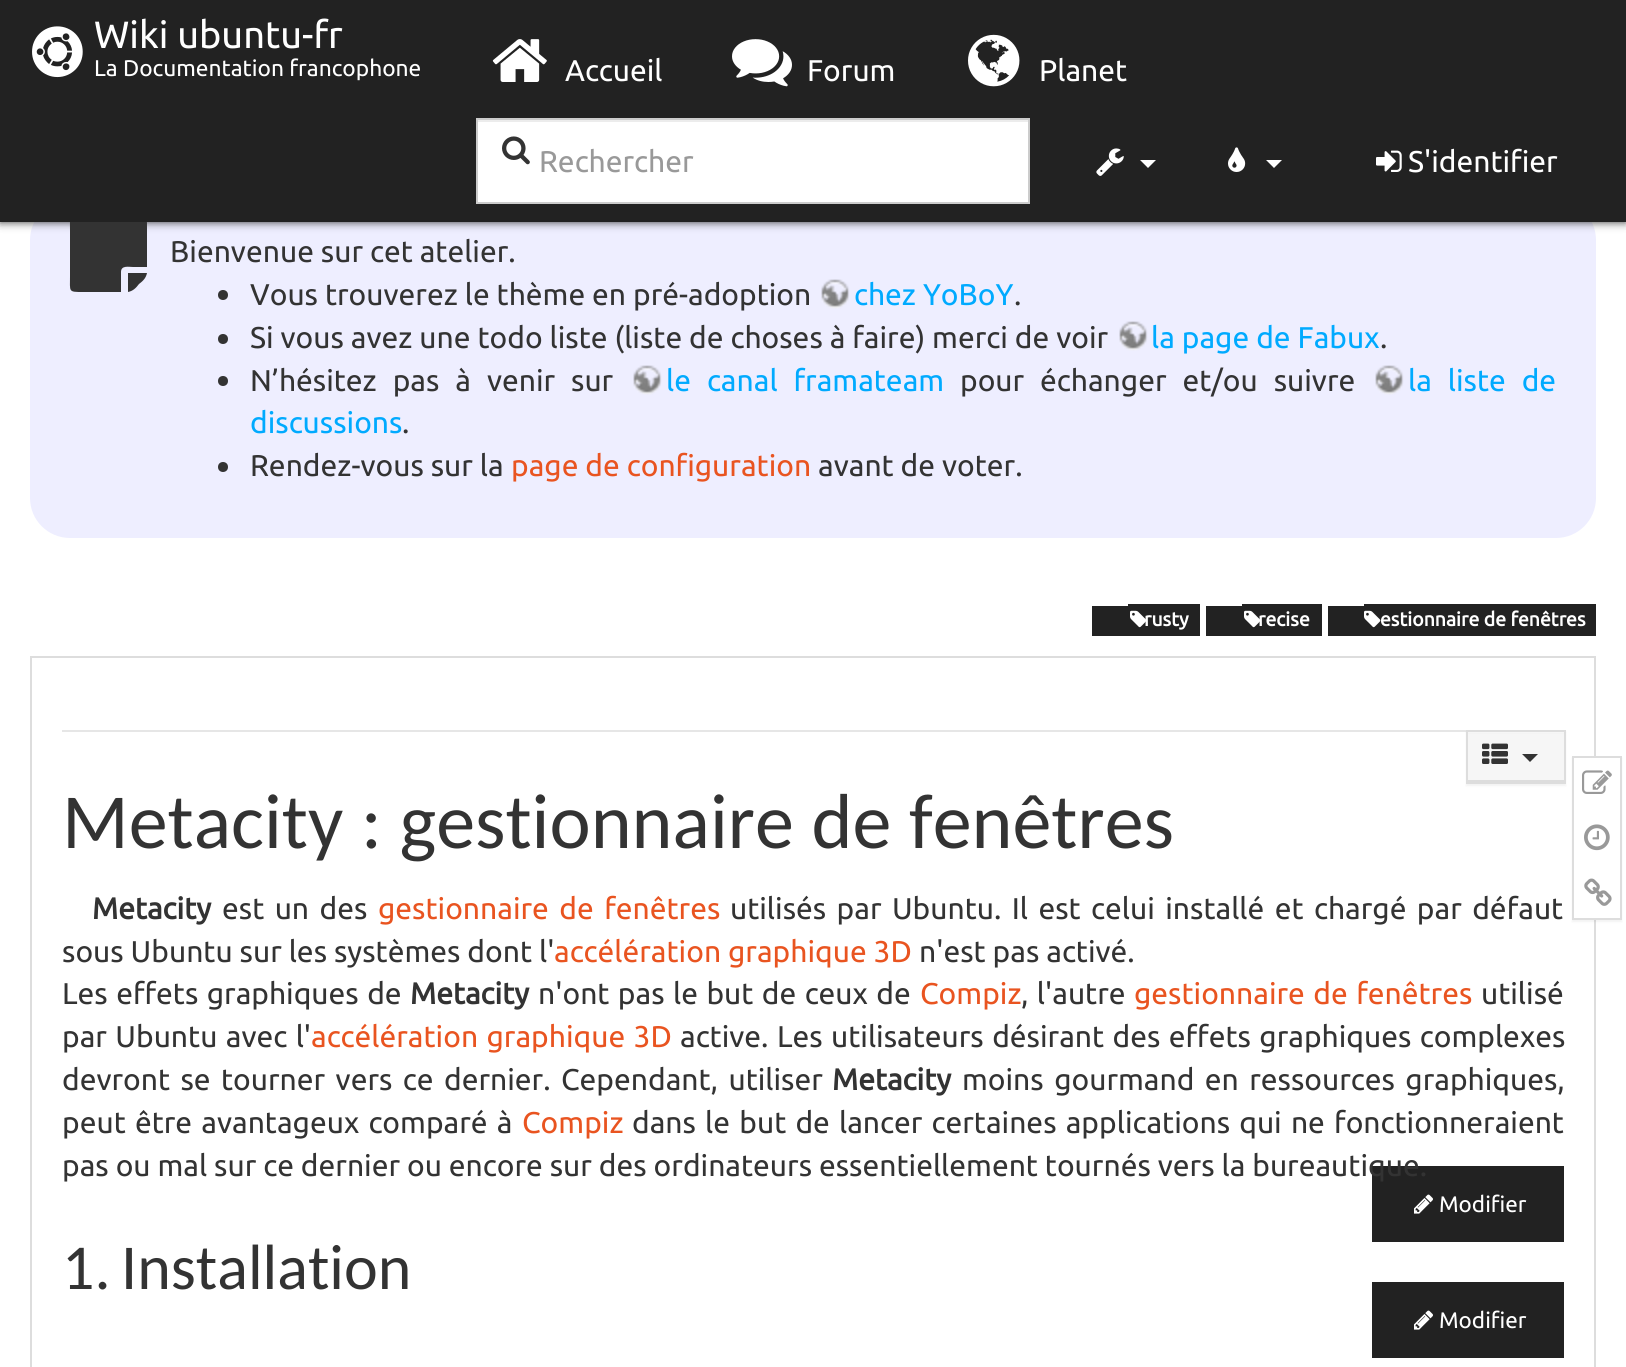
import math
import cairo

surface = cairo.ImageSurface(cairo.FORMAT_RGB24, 1626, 1367)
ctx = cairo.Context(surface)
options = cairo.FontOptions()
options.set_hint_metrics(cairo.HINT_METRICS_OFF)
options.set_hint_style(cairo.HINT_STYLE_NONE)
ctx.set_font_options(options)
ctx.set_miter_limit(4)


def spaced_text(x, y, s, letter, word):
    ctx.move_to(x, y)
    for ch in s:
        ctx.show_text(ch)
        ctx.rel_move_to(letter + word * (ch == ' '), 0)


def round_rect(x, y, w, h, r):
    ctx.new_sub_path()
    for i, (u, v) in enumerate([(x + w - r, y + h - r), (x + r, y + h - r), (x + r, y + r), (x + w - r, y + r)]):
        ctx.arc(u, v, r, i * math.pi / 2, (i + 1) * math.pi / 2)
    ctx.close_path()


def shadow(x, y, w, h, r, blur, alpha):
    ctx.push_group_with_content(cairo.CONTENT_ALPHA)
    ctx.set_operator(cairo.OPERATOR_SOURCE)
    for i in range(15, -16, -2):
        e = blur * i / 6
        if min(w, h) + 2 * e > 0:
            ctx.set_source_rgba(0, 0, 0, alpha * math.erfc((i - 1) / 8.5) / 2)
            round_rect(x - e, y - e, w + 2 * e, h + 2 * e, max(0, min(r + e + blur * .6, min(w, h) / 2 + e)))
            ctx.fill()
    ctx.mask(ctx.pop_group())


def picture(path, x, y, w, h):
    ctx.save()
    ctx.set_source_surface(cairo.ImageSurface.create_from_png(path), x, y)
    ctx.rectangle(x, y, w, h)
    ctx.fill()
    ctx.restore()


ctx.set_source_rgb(1, 1, 1)
ctx.paint()
ctx.set_source_rgb(0.933, 0.933, 1)
round_rect(30, 200, 1566, 338, 40)
ctx.fill()
ctx.set_source_rgb(0.2, 0.2, 0.2)
ctx.new_path()
ctx.move_to(121, 272)
ctx.line_to(121, 292)
ctx.line_to(83, 292)
ctx.curve_to(68, 292, 70, 292, 70, 276)
ctx.line_to(70, 231)
ctx.curve_to(70, 214, 68, 215, 86, 215)
ctx.line_to(131, 215)
ctx.curve_to(147, 215, 147, 213, 147, 228)
ctx.line_to(147, 267)
ctx.line_to(133, 267)
ctx.curve_to(129, 267, 121, 265, 121, 272)
ctx.close_path()
ctx.move_to(128, 273)
ctx.line_to(147, 273)
ctx.curve_to(146, 278, 143, 281, 139, 284)
ctx.curve_to(136, 288, 133, 291, 128, 292)
ctx.close_path()
ctx.fill()
ctx.set_source_rgb(0.2, 0.2, 0.2)
shadow(0, 0, 1626, 222, 0, 4.5, 1)
ctx.set_source_rgb(0.133, 0.133, 0.133)
ctx.rectangle(0, 0, 1626, 222)
ctx.fill()
picture("img1.png", 32, 26, 51, 52)
ctx.select_font_face("Ubuntu")
ctx.set_font_size(38)
ctx.set_source_rgb(1, 1, 1)
ctx.move_to(94, 48)
ctx.show_text("Wiki ubuntu-fr")
ctx.set_font_size(22.75)
ctx.move_to(94, 76)
ctx.show_text("La Documentation francophone")
picture("img2.png", 492, 39, 55, 43)
ctx.set_font_size(30)
ctx.move_to(565, 81)
ctx.show_text("Accueil")
picture("img3.png", 732, 39, 60, 48)
ctx.move_to(807, 81)
ctx.show_text("Forum")
picture("img4.png", 968, 34, 52, 53)
ctx.move_to(1039, 81)
ctx.show_text("Planet")
ctx.rectangle(478, 122, 550, 80)
ctx.fill()
ctx.set_source_rgb(0.925, 0.925, 0.925)
ctx.rectangle(478, 120, 550, 2)
ctx.fill()
ctx.rectangle(477, 119, 552, 84)
ctx.set_source_rgb(0.8, 0.8, 0.8)
ctx.stroke()
picture("img5.png", 502, 136, 28, 29)
ctx.set_source_rgb(0.6, 0.6, 0.6)
ctx.move_to(539, 172)
ctx.show_text("Rechercher")
picture("img6.png", 1096, 148, 28, 28)
ctx.set_source_rgb(1, 1, 1)
ctx.new_path()
ctx.move_to(1140, 160)
ctx.line_to(1156, 160)
ctx.line_to(1148, 168)
ctx.close_path()
ctx.fill()
picture("img7.png", 1228, 147, 18, 25)
ctx.new_path()
ctx.move_to(1266, 160)
ctx.line_to(1282, 160)
ctx.line_to(1274, 168)
ctx.close_path()
ctx.fill()
picture("img8.png", 1376, 150, 26, 22)
ctx.move_to(1408, 172)
ctx.show_text("S'identifier")
ctx.set_source_rgb(0.2, 0.2, 0.2)
ctx.move_to(170, 262)
ctx.show_text("Bienvenue sur cet atelier.")
ctx.new_path()
ctx.arc(223, 295, 5, 0, 2 * math.pi)
ctx.fill()
ctx.move_to(250, 305)
ctx.show_text("Vous trouverez le thème en pré-adoption")
picture("img9.png", 821, 279, 29, 30)
ctx.set_source_rgb(0, 0.667, 1)
ctx.move_to(854, 305)
ctx.show_text("chez YoBoY")
ctx.set_source_rgb(0.2, 0.2, 0.2)
ctx.move_to(1014, 305)
ctx.show_text(".")
ctx.new_path()
ctx.arc(223, 339, 5, 0, 2 * math.pi)
ctx.fill()
ctx.move_to(250, 348)
ctx.show_text("Si vous avez une todo liste (liste de choses à faire) merci de voir")
picture("img9.png", 1119, 321, 29, 30)
ctx.set_source_rgb(0, 0.667, 1)
ctx.move_to(1151, 348)
ctx.show_text("la page de Fabux")
ctx.set_source_rgb(0.2, 0.2, 0.2)
ctx.move_to(1380, 348)
ctx.show_text(".")
ctx.new_path()
ctx.arc(223, 381, 5, 0, 2 * math.pi)
ctx.fill()
spaced_text(250, 391, "N’hésitez pas à venir sur", 0, 9)
picture("img9.png", 633, 365, 29, 30)
ctx.set_source_rgb(0, 0.667, 1)
spaced_text(666, 391, "le canal framateam", 0, 9)
ctx.set_source_rgb(0.2, 0.2, 0.2)
spaced_text(960, 391, "pour échanger et/ou suivre", 0, 9)
picture("img9.png", 1375, 365, 29, 30)
ctx.set_source_rgb(0, 0.667, 1)
spaced_text(1408, 391, "la liste de", 0, 9)
ctx.move_to(250, 433)
ctx.show_text("discussions")
ctx.set_source_rgb(0.2, 0.2, 0.2)
ctx.move_to(402, 433)
ctx.show_text(".")
ctx.new_path()
ctx.arc(223, 467, 5, 0, 2 * math.pi)
ctx.fill()
ctx.move_to(250, 476)
ctx.show_text("Rendez-vous sur la")
ctx.set_source_rgb(0.914, 0.329, 0.125)
ctx.move_to(511, 476)
ctx.show_text("page de configuration")
ctx.set_source_rgb(0.2, 0.2, 0.2)
ctx.move_to(818, 476)
ctx.show_text("avant de voter.")
ctx.set_source_rgb(0.133, 0.133, 0.133)
ctx.rectangle(1092, 606, 36, 30)
ctx.fill()
ctx.rectangle(1128, 604, 72, 32)
ctx.fill()
picture("img10.png", 1130, 610, 17, 18)
ctx.select_font_face("Ubuntu", cairo.FONT_SLANT_NORMAL, cairo.FONT_WEIGHT_BOLD)
ctx.set_font_size(19.4)
ctx.set_source_rgb(1, 1, 1)
ctx.move_to(1144, 626)
ctx.show_text("rusty")
ctx.set_source_rgb(0.133, 0.133, 0.133)
ctx.rectangle(1206, 606, 36, 30)
ctx.fill()
ctx.rectangle(1242, 604, 80, 32)
ctx.fill()
picture("img10.png", 1244, 610, 17, 18)
ctx.set_source_rgb(1, 1, 1)
ctx.move_to(1258, 626)
ctx.show_text("recise")
ctx.set_source_rgb(0.133, 0.133, 0.133)
ctx.rectangle(1328, 606, 36, 30)
ctx.fill()
ctx.rectangle(1364, 604, 232, 32)
ctx.fill()
picture("img10.png", 1364, 610, 17, 18)
ctx.set_source_rgb(1, 1, 1)
ctx.move_to(1380, 626)
ctx.show_text("estionnaire de fenêtres")
ctx.rectangle(31, 657, 1564, 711)
ctx.set_source_rgb(0.867, 0.867, 0.867)
ctx.stroke()
ctx.set_source_rgb(0.902, 0.902, 0.902)
ctx.rectangle(62, 730, 1404, 2)
ctx.fill()
ctx.set_source_rgb(0, 0, 0)
shadow(1466, 732, 100, 54, 0, 1, 0.05)
ctx.rectangle(1467, 731, 98, 52)
ctx.set_source_rgb(0.867, 0.867, 0.867)
ctx.stroke()
ctx.set_source_rgb(0.961, 0.961, 0.961)
ctx.rectangle(1468, 734, 96, 46)
ctx.fill()
ctx.set_source_rgb(0.867, 0.867, 0.867)
ctx.rectangle(1468, 780, 96, 2)
ctx.fill()
picture("img11.png", 1482, 743, 26, 21)
ctx.set_source_rgb(0.2, 0.2, 0.2)
ctx.new_path()
ctx.move_to(1522, 754)
ctx.line_to(1538, 754)
ctx.line_to(1530, 762)
ctx.close_path()
ctx.fill()
ctx.select_font_face("Carlito")
ctx.set_font_size(78)
ctx.move_to(62, 848)
ctx.show_text("Metacity : gestionnaire de fenêtres")
ctx.select_font_face("Ubuntu", cairo.FONT_SLANT_NORMAL, cairo.FONT_WEIGHT_BOLD)
ctx.set_font_size(30)
ctx.move_to(92, 919)
ctx.show_text("Metacity")
ctx.select_font_face("Ubuntu")
spaced_text(222, 919, "est un des", 0, 3.5)
ctx.set_source_rgb(0.914, 0.329, 0.125)
spaced_text(378, 919, "gestionnaire de fenêtres", 0, 3.5)
ctx.set_source_rgb(0.2, 0.2, 0.2)
spaced_text(730, 919, "utilisés par Ubuntu. Il est celui installé et chargé par défaut", 0, 3.5)
ctx.move_to(62, 962)
ctx.show_text("sous Ubuntu sur les systèmes dont l'")
ctx.set_source_rgb(0.914, 0.329, 0.125)
ctx.move_to(554, 962)
ctx.show_text("accélération graphique 3D")
ctx.set_source_rgb(0.2, 0.2, 0.2)
ctx.move_to(919, 962)
ctx.show_text("n'est pas activé.")
spaced_text(62, 1004, "Les effets graphiques de", 0, 1.5)
ctx.select_font_face("Ubuntu", cairo.FONT_SLANT_NORMAL, cairo.FONT_WEIGHT_BOLD)
ctx.move_to(410, 1004)
ctx.show_text("Metacity")
ctx.select_font_face("Ubuntu")
spaced_text(538, 1004, "n'ont pas le but de ceux de", 0, 1.5)
ctx.set_source_rgb(0.914, 0.329, 0.125)
ctx.move_to(920, 1004)
ctx.show_text("Compiz")
ctx.set_source_rgb(0.2, 0.2, 0.2)
spaced_text(1021, 1004, ", l'autre", 0, 1.5)
ctx.set_source_rgb(0.914, 0.329, 0.125)
spaced_text(1134, 1004, "gestionnaire de fenêtres", 0, 1.5)
ctx.set_source_rgb(0.2, 0.2, 0.2)
ctx.move_to(1481, 1004)
ctx.show_text("utilisé")
spaced_text(62, 1047, "par Ubuntu avec l'", 0, 1.5)
ctx.set_source_rgb(0.914, 0.329, 0.125)
spaced_text(311, 1047, "accélération graphique 3D", 0, 1.5)
ctx.set_source_rgb(0.2, 0.2, 0.2)
spaced_text(680, 1047, "active. Les utilisateurs désirant des effets graphiques complexes", 0, 1.5)
spaced_text(62, 1090, "devront se tourner vers ce dernier. Cependant, utiliser", 0, 3.5)
ctx.select_font_face("Ubuntu", cairo.FONT_SLANT_NORMAL, cairo.FONT_WEIGHT_BOLD)
ctx.move_to(832, 1090)
ctx.show_text("Metacity")
ctx.select_font_face("Ubuntu")
spaced_text(962, 1090, "moins gourmand en ressources graphiques,", 0, 3.5)
spaced_text(62, 1133, "peut être avantageux comparé à", 0, 2.25)
ctx.set_source_rgb(0.914, 0.329, 0.125)
ctx.move_to(522, 1133)
ctx.show_text("Compiz")
ctx.set_source_rgb(0.2, 0.2, 0.2)
spaced_text(632, 1133, "dans le but de lancer certaines applications qui ne fonctionneraient", 0, 2.25)
ctx.set_source_rgb(0.133, 0.133, 0.133)
ctx.rectangle(1372, 1166, 192, 76)
ctx.fill()
ctx.set_source_rgb(0.2, 0.2, 0.2)
ctx.move_to(62, 1176)
ctx.show_text("pas ou mal sur ce dernier ou encore sur des ordinateurs essentiellement tournés vers la bureautique.")
picture("img12.png", 1414, 1194, 19, 20)
ctx.set_font_size(22.5)
ctx.set_source_rgb(1, 1, 1)
ctx.move_to(1439, 1212)
ctx.show_text("Modifier")
ctx.select_font_face("Carlito")
ctx.set_font_size(64)
ctx.set_source_rgb(0.2, 0.2, 0.2)
ctx.move_to(62, 1289)
ctx.show_text("1.")
ctx.move_to(121, 1289)
ctx.show_text("Installation")
ctx.set_source_rgb(0.133, 0.133, 0.133)
ctx.rectangle(1372, 1282, 192, 76)
ctx.fill()
picture("img12.png", 1414, 1310, 19, 20)
ctx.select_font_face("Ubuntu")
ctx.set_font_size(22.5)
ctx.set_source_rgb(1, 1, 1)
ctx.move_to(1439, 1328)
ctx.show_text("Modifier")
ctx.set_source_rgb(0, 0, 0)
shadow(1572, 758, 50, 164, 0, 1, 0.05)
ctx.set_source_rgb(1, 1, 1)
ctx.rectangle(1573, 757, 48, 162)
ctx.fill_preserve()
ctx.set_source_rgb(0.867, 0.867, 0.867)
ctx.stroke()
picture("img13.png", 1582, 770, 30, 24)
picture("img14.png", 1584, 824, 26, 27)
picture("img15.png", 1584, 878, 28, 28)
surface.write_to_png("page.png")
